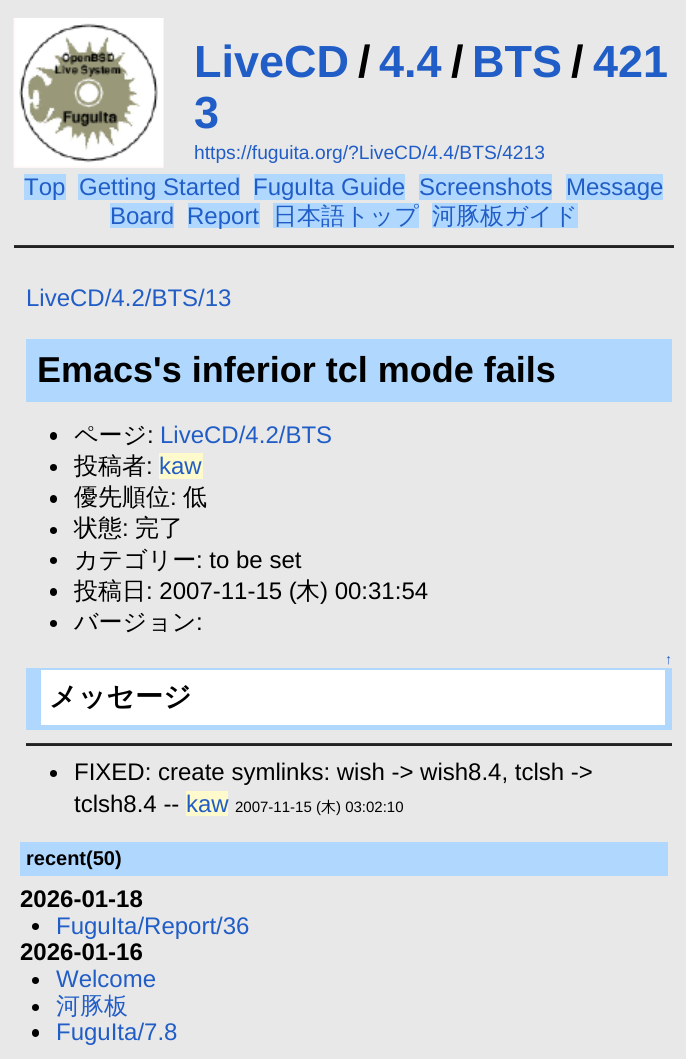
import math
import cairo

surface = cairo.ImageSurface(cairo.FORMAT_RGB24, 686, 1059)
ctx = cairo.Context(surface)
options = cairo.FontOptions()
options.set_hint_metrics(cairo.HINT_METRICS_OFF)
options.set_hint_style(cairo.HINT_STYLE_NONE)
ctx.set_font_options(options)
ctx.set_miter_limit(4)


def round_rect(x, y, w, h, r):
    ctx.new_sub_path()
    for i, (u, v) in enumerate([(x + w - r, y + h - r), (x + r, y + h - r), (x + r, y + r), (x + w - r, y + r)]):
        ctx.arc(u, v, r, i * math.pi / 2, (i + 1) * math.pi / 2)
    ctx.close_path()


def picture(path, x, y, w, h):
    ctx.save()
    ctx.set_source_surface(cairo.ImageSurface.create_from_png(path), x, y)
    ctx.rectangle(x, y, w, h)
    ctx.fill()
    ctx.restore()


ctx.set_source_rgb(0.91, 0.91, 0.91)
ctx.paint()
picture("img1.png", 13, 18, 151, 150)
ctx.select_font_face("Liberation Sans", cairo.FONT_SLANT_NORMAL, cairo.FONT_WEIGHT_BOLD)
ctx.set_font_size(45)
ctx.set_source_rgb(0.129, 0.365, 0.776)
ctx.move_to(194, 77)
ctx.show_text("LiveCD")
ctx.set_source_rgb(0, 0, 0)
ctx.move_to(358, 77)
ctx.show_text("/")
ctx.set_source_rgb(0.129, 0.365, 0.776)
ctx.move_to(379, 77)
ctx.show_text("4.4")
ctx.set_source_rgb(0, 0, 0)
ctx.move_to(451, 77)
ctx.show_text("/")
ctx.set_source_rgb(0.129, 0.365, 0.776)
ctx.move_to(472, 77)
ctx.show_text("BTS")
ctx.set_source_rgb(0, 0, 0)
ctx.move_to(571, 77)
ctx.show_text("/")
ctx.set_source_rgb(0.129, 0.365, 0.776)
ctx.move_to(593, 77)
ctx.show_text("421")
ctx.move_to(194, 128)
ctx.show_text("3")
ctx.select_font_face("Liberation Sans")
ctx.set_font_size(19.25)
ctx.move_to(194, 159)
ctx.show_text("https://fuguita.org/?LiveCD/4.4/BTS/4213")
ctx.set_source_rgb(0.69, 0.847, 1)
ctx.rectangle(24, 174, 42, 26)
ctx.fill()
ctx.set_font_size(24)
ctx.set_source_rgb(0.129, 0.365, 0.776)
ctx.move_to(24, 195)
ctx.show_text("Top")
ctx.set_source_rgb(0.69, 0.847, 1)
ctx.rectangle(78, 174, 162, 26)
ctx.fill()
ctx.set_source_rgb(0.129, 0.365, 0.776)
ctx.move_to(79, 195)
ctx.show_text("Getting Started")
ctx.set_source_rgb(0.69, 0.847, 1)
ctx.rectangle(254, 174, 151, 26)
ctx.fill()
ctx.set_source_rgb(0.129, 0.365, 0.776)
ctx.move_to(253, 195)
ctx.show_text("FuguIta Guide")
ctx.set_source_rgb(0.69, 0.847, 1)
ctx.rectangle(419, 174, 133, 26)
ctx.fill()
ctx.set_source_rgb(0.129, 0.365, 0.776)
ctx.move_to(419, 195)
ctx.show_text("Screenshots")
ctx.set_source_rgb(0.69, 0.847, 1)
ctx.rectangle(566, 174, 97, 26)
ctx.fill()
ctx.set_source_rgb(0.129, 0.365, 0.776)
ctx.move_to(566, 195)
ctx.show_text("Message")
ctx.set_source_rgb(0.69, 0.847, 1)
ctx.rectangle(110, 203, 64, 25)
ctx.fill()
ctx.set_source_rgb(0.129, 0.365, 0.776)
ctx.move_to(110, 224)
ctx.show_text("Board")
ctx.set_source_rgb(0.69, 0.847, 1)
ctx.rectangle(188, 203, 72, 25)
ctx.fill()
ctx.set_source_rgb(0.129, 0.365, 0.776)
ctx.move_to(187, 224)
ctx.show_text("Report")
ctx.set_source_rgb(0.69, 0.847, 1)
ctx.rectangle(273, 203, 146, 25)
ctx.fill()
ctx.select_font_face("WenQuanYi Zen Hei Medium")
ctx.set_source_rgb(0.129, 0.365, 0.776)
ctx.move_to(273, 224)
ctx.show_text("日本語トップ")
ctx.set_source_rgb(0.69, 0.847, 1)
ctx.rectangle(432, 203, 146, 25)
ctx.fill()
ctx.set_source_rgb(0.129, 0.365, 0.776)
ctx.move_to(432, 224)
ctx.show_text("河豚板ガイド")
ctx.set_source_rgb(0.2, 0.2, 0.2)
ctx.rectangle(14, 245, 660, 1)
ctx.fill()
ctx.set_source_rgb(0.133, 0.133, 0.133)
ctx.rectangle(14, 246, 660, 2)
ctx.fill()
ctx.select_font_face("Liberation Sans")
ctx.set_source_rgb(0.129, 0.365, 0.776)
ctx.move_to(26, 306)
ctx.show_text("LiveCD/4.2/BTS/13")
ctx.set_source_rgb(0.69, 0.847, 1)
ctx.rectangle(26, 339, 646, 63)
ctx.fill()
ctx.select_font_face("Liberation Sans", cairo.FONT_SLANT_NORMAL, cairo.FONT_WEIGHT_BOLD)
ctx.set_font_size(36)
ctx.set_source_rgb(0, 0, 0)
ctx.move_to(37, 382)
ctx.show_text("Emacs's inferior tcl mode fails")
round_rect(50, 432, 7, 8, 3.5)
ctx.fill()
ctx.select_font_face("WenQuanYi Zen Hei Medium")
ctx.set_font_size(24)
ctx.move_to(74, 443)
ctx.show_text("ページ")
ctx.select_font_face("Liberation Sans")
ctx.move_to(147, 443)
ctx.show_text(":")
ctx.set_source_rgb(0.129, 0.365, 0.776)
ctx.move_to(160, 443)
ctx.show_text("LiveCD/4.2/BTS")
ctx.set_source_rgb(0, 0, 0)
ctx.new_path()
ctx.arc(53.5, 467.5, 3.5, 0, 2 * math.pi)
ctx.fill()
ctx.select_font_face("WenQuanYi Zen Hei Medium")
ctx.move_to(74, 474)
ctx.show_text("投稿者")
ctx.select_font_face("Liberation Sans")
ctx.move_to(146, 474)
ctx.show_text(":")
ctx.set_source_rgb(1, 0.98, 0.8)
ctx.rectangle(159, 453, 44, 26)
ctx.fill()
ctx.set_source_rgb(0.129, 0.365, 0.776)
ctx.move_to(159, 474)
ctx.show_text("kaw")
ctx.set_source_rgb(0, 0, 0)
round_rect(50, 495, 7, 8, 3.5)
ctx.fill()
ctx.select_font_face("WenQuanYi Zen Hei Medium")
ctx.move_to(74, 505)
ctx.show_text("優先順位")
ctx.select_font_face("Liberation Sans")
ctx.move_to(170, 505)
ctx.show_text(":")
ctx.select_font_face("WenQuanYi Zen Hei Medium")
ctx.move_to(183, 505)
ctx.show_text("低")
ctx.new_path()
ctx.arc(53.5, 530.5, 3.5, 0, 2 * math.pi)
ctx.fill()
ctx.move_to(74, 536)
ctx.show_text("状態")
ctx.select_font_face("Liberation Sans")
ctx.move_to(122, 536)
ctx.show_text(":")
ctx.select_font_face("WenQuanYi Zen Hei Medium")
ctx.move_to(135, 536)
ctx.show_text("完了")
ctx.new_path()
ctx.arc(53.5, 560.5, 3.5, 0, 2 * math.pi)
ctx.fill()
ctx.move_to(74, 568)
ctx.show_text("カテゴリー")
ctx.select_font_face("Liberation Sans")
ctx.move_to(196, 568)
ctx.show_text(": to be set")
round_rect(50, 588, 7, 8, 3.5)
ctx.fill()
ctx.select_font_face("WenQuanYi Zen Hei Medium")
ctx.move_to(74, 599)
ctx.show_text("投稿日")
ctx.select_font_face("Liberation Sans")
ctx.move_to(146, 599)
ctx.show_text(": 2007-11-15 (")
ctx.select_font_face("WenQuanYi Zen Hei Medium")
ctx.move_to(296, 599)
ctx.show_text("木")
ctx.select_font_face("Liberation Sans")
ctx.move_to(320, 599)
ctx.show_text(") 00:31:54")
ctx.new_path()
ctx.arc(53.5, 623.5, 3.5, 0, 2 * math.pi)
ctx.fill()
ctx.select_font_face("WenQuanYi Zen Hei Medium")
ctx.move_to(74, 630)
ctx.show_text("バージョン")
ctx.select_font_face("Liberation Sans")
ctx.move_to(196, 630)
ctx.show_text(":")
ctx.set_font_size(14)
ctx.set_source_rgb(0.129, 0.365, 0.776)
ctx.move_to(665, 664)
ctx.show_text("↑")
ctx.set_source_rgb(1, 1, 1)
ctx.rectangle(41, 670, 624, 55)
ctx.fill()
ctx.set_source_rgb(0.69, 0.847, 1)
ctx.rectangle(41, 668, 631, 2)
ctx.fill()
ctx.rectangle(665, 668, 7, 61)
ctx.fill()
ctx.rectangle(26, 725, 646, 5)
ctx.fill()
ctx.rectangle(26, 668, 15, 57)
ctx.fill()
ctx.select_font_face("WenQuanYi Zen Hei", cairo.FONT_SLANT_NORMAL, cairo.FONT_WEIGHT_BOLD)
ctx.set_font_size(28)
ctx.set_source_rgb(0, 0, 0)
ctx.move_to(49, 706)
ctx.show_text("メッセージ")
ctx.set_source_rgb(0.2, 0.2, 0.2)
ctx.rectangle(26, 743, 646, 1)
ctx.fill()
ctx.set_source_rgb(0.133, 0.133, 0.133)
ctx.rectangle(26, 744, 646, 2)
ctx.fill()
ctx.set_source_rgb(0, 0, 0)
ctx.arc(53.5, 773.5, 3.5, 0, 2 * math.pi)
ctx.fill()
ctx.select_font_face("Liberation Sans")
ctx.set_font_size(24)
ctx.move_to(74, 780)
ctx.show_text("FIXED: create symlinks: wish -> wish8.4, tclsh ->")
ctx.move_to(74, 812)
ctx.show_text("tclsh8.4 --")
ctx.set_source_rgb(1, 0.98, 0.8)
ctx.rectangle(186, 791, 42, 25)
ctx.fill()
ctx.set_source_rgb(0.129, 0.365, 0.776)
ctx.move_to(186, 812)
ctx.show_text("kaw")
ctx.set_font_size(15)
ctx.set_source_rgb(0, 0, 0)
ctx.move_to(235, 812)
ctx.show_text("2007-11-15 (")
ctx.select_font_face("WenQuanYi Zen Hei Medium")
ctx.move_to(321, 812)
ctx.show_text("木")
ctx.select_font_face("Liberation Sans")
ctx.move_to(336, 812)
ctx.show_text(") 03:02:10")
ctx.set_source_rgb(0.69, 0.847, 1)
ctx.rectangle(20, 842, 648, 34)
ctx.fill()
ctx.select_font_face("Liberation Sans", cairo.FONT_SLANT_NORMAL, cairo.FONT_WEIGHT_BOLD)
ctx.set_font_size(20)
ctx.set_source_rgb(0, 0, 0)
ctx.move_to(26, 865)
ctx.show_text("recent(50)")
ctx.set_font_size(24)
ctx.move_to(20, 907)
ctx.show_text("2026-01-18")
ctx.new_path()
ctx.arc(35.5, 926.5, 3.5, 0, 2 * math.pi)
ctx.fill()
ctx.select_font_face("Liberation Sans")
ctx.set_source_rgb(0.129, 0.365, 0.776)
ctx.move_to(56, 934)
ctx.show_text("FuguIta/Report/36")
ctx.select_font_face("Liberation Sans", cairo.FONT_SLANT_NORMAL, cairo.FONT_WEIGHT_BOLD)
ctx.set_source_rgb(0, 0, 0)
ctx.move_to(20, 960)
ctx.show_text("2026-01-16")
ctx.new_path()
ctx.arc(35.5, 980.5, 3.5, 0, 2 * math.pi)
ctx.fill()
ctx.select_font_face("Liberation Sans")
ctx.set_source_rgb(0.129, 0.365, 0.776)
ctx.move_to(56, 987)
ctx.show_text("Welcome")
ctx.set_source_rgb(0, 0, 0)
ctx.new_path()
ctx.arc(35.5, 1007.5, 3.5, 0, 2 * math.pi)
ctx.fill()
ctx.select_font_face("WenQuanYi Zen Hei Medium")
ctx.set_source_rgb(0.129, 0.365, 0.776)
ctx.move_to(56, 1014)
ctx.show_text("河豚板")
ctx.set_source_rgb(0, 0, 0)
round_rect(32, 1029, 7, 8, 3.5)
ctx.fill()
ctx.select_font_face("Liberation Sans")
ctx.set_source_rgb(0.129, 0.365, 0.776)
ctx.move_to(56, 1040)
ctx.show_text("FuguIta/7.8")
surface.write_to_png("page.png")
